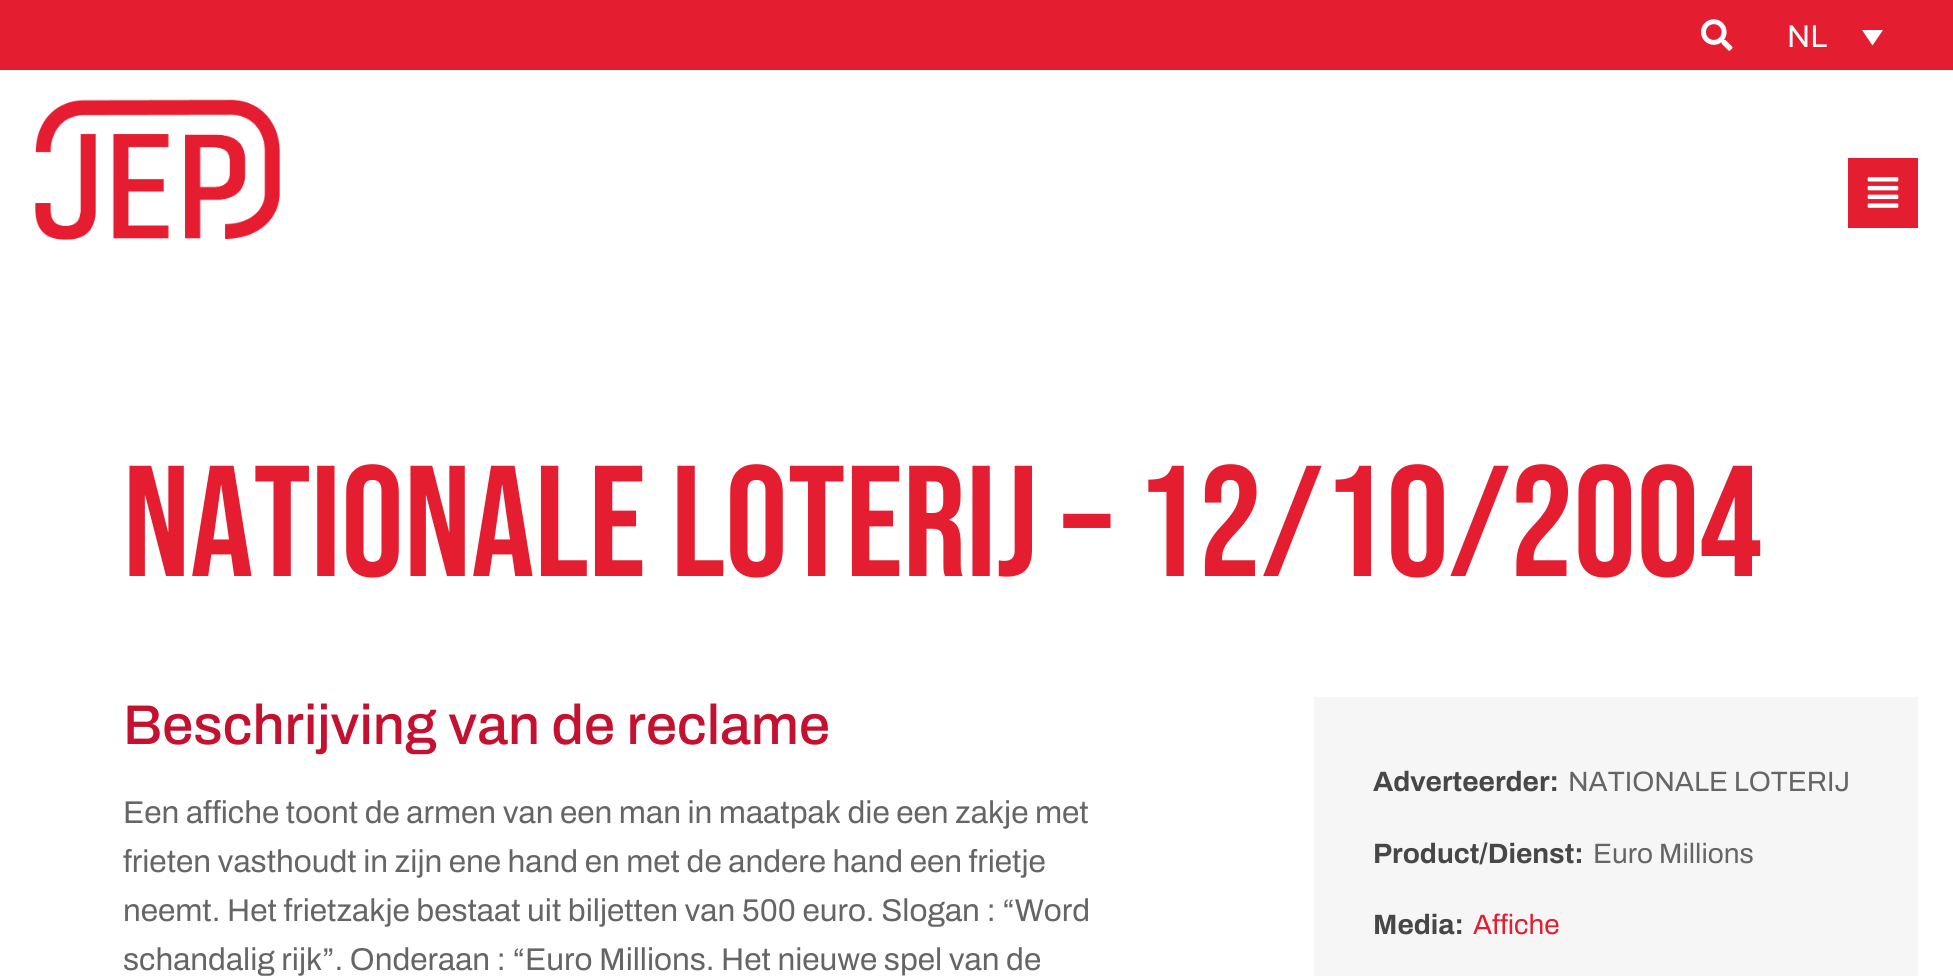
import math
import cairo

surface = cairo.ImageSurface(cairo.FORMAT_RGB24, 1953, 976)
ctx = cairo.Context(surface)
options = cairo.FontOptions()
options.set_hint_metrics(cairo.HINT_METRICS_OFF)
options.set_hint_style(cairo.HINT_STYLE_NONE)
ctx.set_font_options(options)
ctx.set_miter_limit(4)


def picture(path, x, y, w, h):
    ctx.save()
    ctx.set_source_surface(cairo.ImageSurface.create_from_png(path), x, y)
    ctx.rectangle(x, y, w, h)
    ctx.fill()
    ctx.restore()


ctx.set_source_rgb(1, 1, 1)
ctx.paint()
ctx.set_source_rgb(0.894, 0.118, 0.188)
ctx.rectangle(0, 0, 1953, 70)
ctx.fill()
picture("img1.png", 1701, 19, 32, 32)
ctx.select_font_face("Archivo")
ctx.set_font_size(31.5)
ctx.set_source_rgb(1, 1, 1)
ctx.move_to(1787, 47)
ctx.show_text("NL")
ctx.new_path()
ctx.move_to(1862, 30)
ctx.line_to(1883, 30)
ctx.line_to(1872.5, 45.5)
ctx.close_path()
ctx.fill()
picture("img2.png", 35, 99, 245, 141)
ctx.set_source_rgb(0.894, 0.118, 0.188)
ctx.rectangle(1848, 158, 70, 70)
ctx.fill()
picture("img3.png", 1867, 177, 32, 31)
ctx.select_font_face("Bebas Neue")
ctx.set_font_size(157.5)
ctx.move_to(123, 576)
ctx.show_text("NATIONALE LOTERIJ – 12/10/2004")
ctx.select_font_face("Archivo Medium")
ctx.set_font_size(56)
ctx.set_source_rgb(0.769, 0.067, 0.188)
ctx.move_to(123, 744)
ctx.show_text("Beschrijving van de reclame")
ctx.select_font_face("Archivo")
ctx.set_font_size(31.5)
ctx.set_source_rgb(0.396, 0.396, 0.396)
ctx.move_to(123, 823)
ctx.show_text("Een affiche toont de armen van een man in maatpak die een zakje met")
ctx.move_to(123, 872)
ctx.show_text("frieten vasthoudt in zijn ene hand en met de andere hand een frietje")
ctx.move_to(123, 921)
ctx.show_text("neemt. Het frietzakje bestaat uit biljetten van 500 euro. Slogan : “Word")
ctx.move_to(123, 970)
ctx.show_text("schandalig rijk”. Onderaan : “Euro Millions. Het nieuwe spel van de")
ctx.set_source_rgb(0.961, 0.961, 0.961)
ctx.rectangle(1314, 697, 604, 279)
ctx.fill()
ctx.select_font_face("Archivo", cairo.FONT_SLANT_NORMAL, cairo.FONT_WEIGHT_BOLD)
ctx.set_font_size(28)
ctx.set_source_rgb(0.278, 0.278, 0.278)
ctx.move_to(1373, 791)
ctx.show_text("Adverteerder:")
ctx.select_font_face("Archivo")
ctx.set_source_rgb(0.396, 0.396, 0.396)
ctx.move_to(1568, 791)
ctx.show_text("NATIONALE LOTERIJ")
ctx.select_font_face("Archivo", cairo.FONT_SLANT_NORMAL, cairo.FONT_WEIGHT_BOLD)
ctx.set_source_rgb(0.278, 0.278, 0.278)
ctx.move_to(1373, 863)
ctx.show_text("Product/Dienst:")
ctx.select_font_face("Archivo")
ctx.set_source_rgb(0.396, 0.396, 0.396)
ctx.move_to(1593, 863)
ctx.show_text("Euro Millions")
ctx.select_font_face("Archivo", cairo.FONT_SLANT_NORMAL, cairo.FONT_WEIGHT_BOLD)
ctx.set_source_rgb(0.278, 0.278, 0.278)
ctx.move_to(1373, 934)
ctx.show_text("Media:")
ctx.select_font_face("Archivo")
ctx.set_source_rgb(0.894, 0.118, 0.188)
ctx.move_to(1473, 934)
ctx.show_text("Affiche")
surface.write_to_png("page.png")
